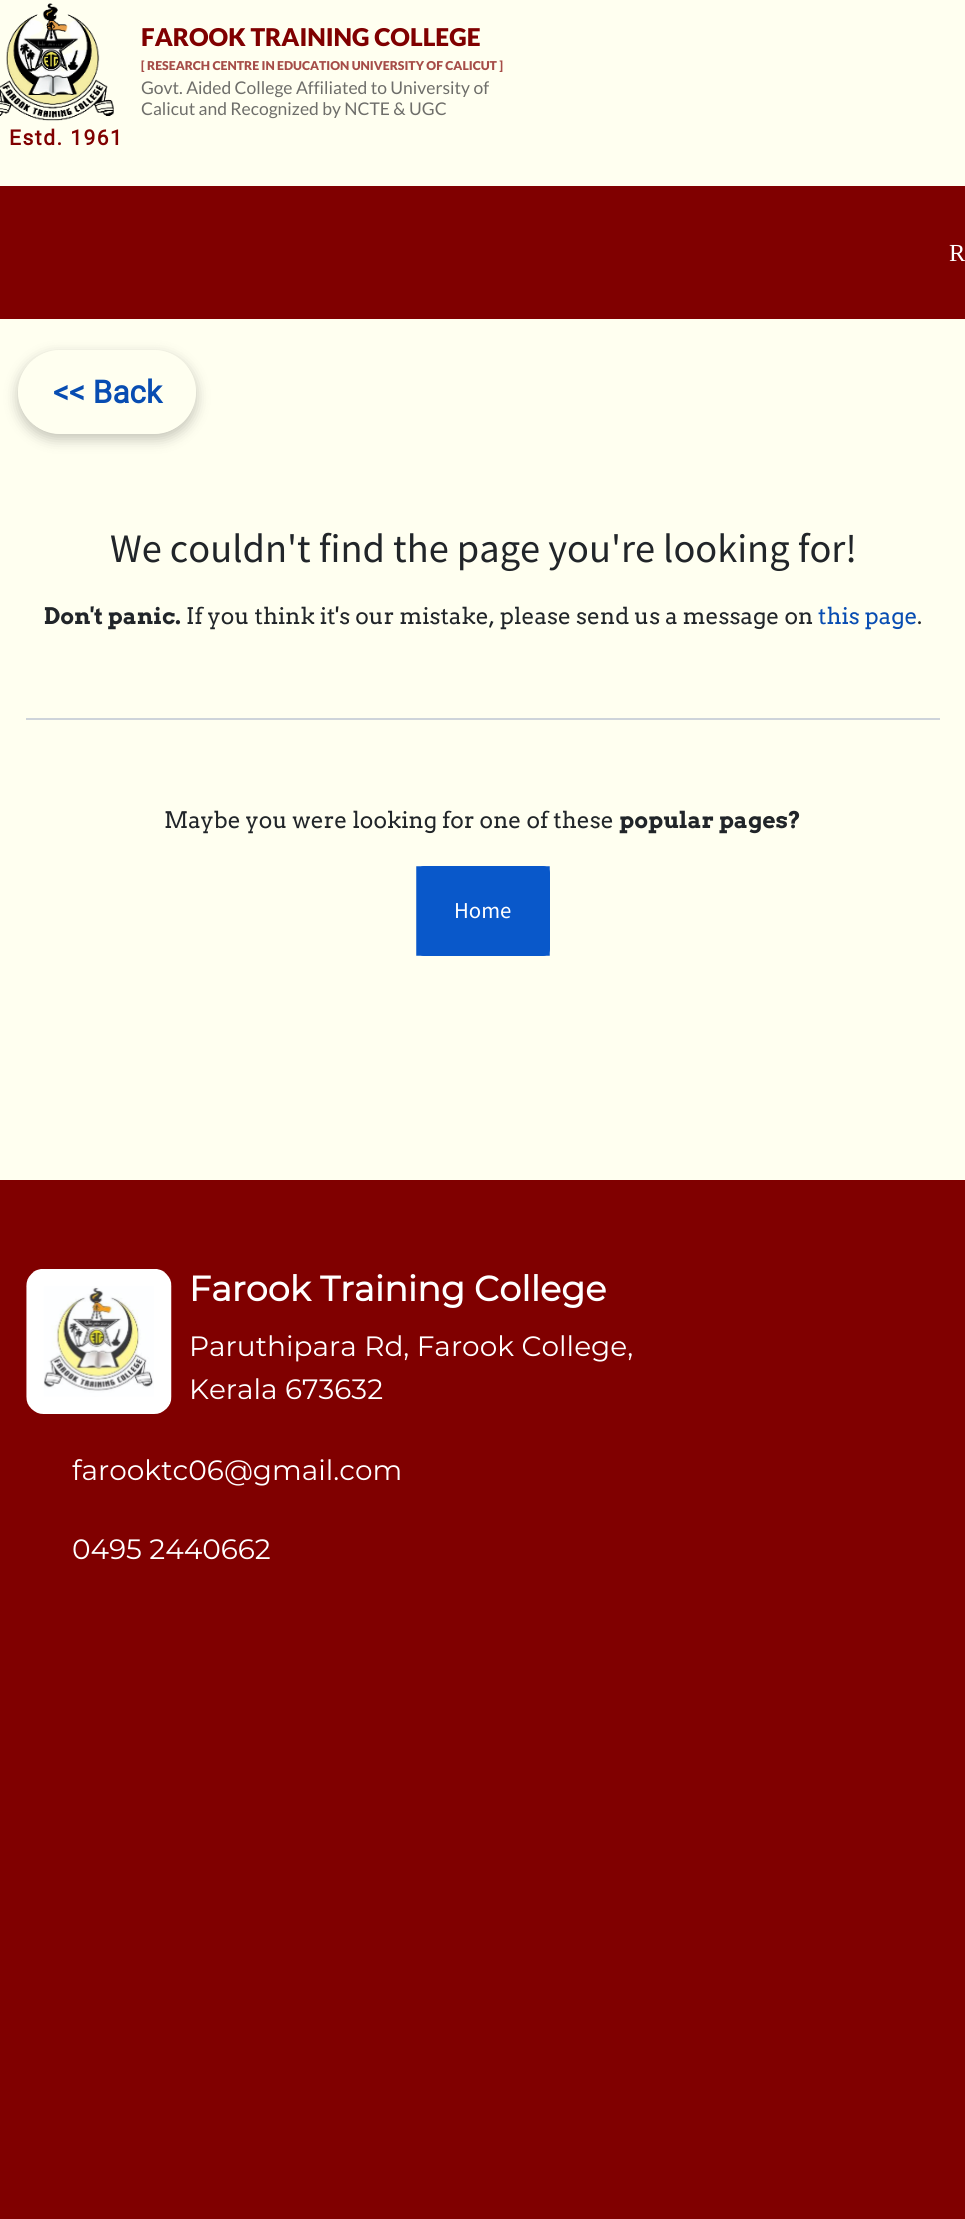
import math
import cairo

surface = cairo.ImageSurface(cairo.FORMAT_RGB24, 965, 2219)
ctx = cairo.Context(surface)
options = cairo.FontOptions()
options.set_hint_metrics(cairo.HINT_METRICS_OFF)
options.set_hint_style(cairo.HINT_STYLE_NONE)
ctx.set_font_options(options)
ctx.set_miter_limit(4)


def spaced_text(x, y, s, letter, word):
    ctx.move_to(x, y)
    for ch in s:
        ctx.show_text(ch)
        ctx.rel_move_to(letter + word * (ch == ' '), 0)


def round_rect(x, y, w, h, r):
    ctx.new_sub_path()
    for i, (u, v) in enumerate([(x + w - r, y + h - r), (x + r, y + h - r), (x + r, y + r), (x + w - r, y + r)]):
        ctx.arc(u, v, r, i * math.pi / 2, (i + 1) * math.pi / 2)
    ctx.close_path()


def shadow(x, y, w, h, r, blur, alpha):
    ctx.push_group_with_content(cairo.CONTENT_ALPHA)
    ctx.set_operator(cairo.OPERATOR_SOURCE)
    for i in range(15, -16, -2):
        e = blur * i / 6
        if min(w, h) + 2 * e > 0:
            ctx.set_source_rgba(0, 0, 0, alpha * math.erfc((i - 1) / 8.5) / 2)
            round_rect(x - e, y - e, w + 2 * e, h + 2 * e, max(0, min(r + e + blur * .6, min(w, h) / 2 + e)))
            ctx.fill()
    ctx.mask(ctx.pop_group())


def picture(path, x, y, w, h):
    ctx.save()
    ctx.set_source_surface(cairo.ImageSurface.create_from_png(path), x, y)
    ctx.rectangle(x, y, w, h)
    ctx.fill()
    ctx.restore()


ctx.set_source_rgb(1, 1, 0.941)
ctx.paint()
ctx.select_font_face("Lato Black")
ctx.set_font_size(24.5)
ctx.set_source_rgb(0.502, 0, 0)
ctx.move_to(141, 46)
ctx.show_text("FAROOK TRAINING COLLEGE")
ctx.set_font_size(12.25)
ctx.set_source_rgb(0.651, 0.302, 0.282)
ctx.move_to(141, 70)
ctx.show_text("[ RESEARCH CENTRE IN EDUCATION UNIVERSITY OF CALICUT ]")
ctx.select_font_face("Lato")
ctx.set_font_size(17.5)
ctx.set_source_rgb(0.431, 0.431, 0.416)
ctx.move_to(141, 94)
ctx.show_text("Govt. Aided College Affiliated to University of")
ctx.move_to(141, 115)
ctx.show_text("Calicut and Recognized by NCTE & UGC")
picture("img1.png", 0, 3, 114, 118)
ctx.select_font_face("Roboto", cairo.FONT_SLANT_NORMAL, cairo.FONT_WEIGHT_BOLD)
ctx.set_font_size(21)
ctx.set_source_rgb(0.502, 0, 0)
spaced_text(9, 145, "Estd. 1961", 1.5, 0)
ctx.rectangle(0, 186, 965, 133)
ctx.fill()
ctx.select_font_face("Liberation Serif")
ctx.set_font_size(24.5)
ctx.set_source_rgb(1, 1, 1)
ctx.move_to(949, 261)
ctx.show_text("R")
ctx.save()
ctx.set_fill_rule(cairo.FILL_RULE_EVEN_ODD)
ctx.new_path()
ctx.move_to(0, 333)
ctx.line_to(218, 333)
ctx.line_to(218, 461)
ctx.line_to(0, 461)
ctx.close_path()
ctx.move_to(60, 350)
ctx.line_to(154, 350)
ctx.curve_to(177, 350, 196, 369, 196, 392)
ctx.curve_to(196, 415, 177, 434, 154, 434)
ctx.line_to(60, 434)
ctx.curve_to(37, 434, 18, 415, 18, 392)
ctx.curve_to(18, 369, 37, 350, 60, 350)
ctx.close_path()
ctx.clip()
ctx.set_source_rgb(0, 0, 0)
shadow(18, 355, 178, 84, 42, 7, 0.24)
ctx.restore()
ctx.select_font_face("Roboto", cairo.FONT_SLANT_NORMAL, cairo.FONT_WEIGHT_BOLD)
ctx.set_font_size(31.5)
ctx.set_source_rgb(0.035, 0.302, 0.698)
ctx.move_to(53, 403)
ctx.show_text("<< Back")
ctx.select_font_face("Source Sans Pro")
ctx.set_font_size(40.4)
ctx.set_source_rgb(0.129, 0.145, 0.161)
ctx.move_to(110, 562)
ctx.show_text("We couldn't find the page you're looking for!")
ctx.select_font_face("Arvo", cairo.FONT_SLANT_NORMAL, cairo.FONT_WEIGHT_BOLD)
ctx.set_font_size(22.75)
ctx.move_to(44, 624)
ctx.show_text("Don't panic.")
ctx.select_font_face("Arvo")
ctx.move_to(186, 624)
ctx.show_text("If you think it's our mistake, please send us a message on")
ctx.set_source_rgb(0.035, 0.302, 0.698)
ctx.move_to(818, 624)
ctx.show_text("this page")
ctx.set_source_rgb(0.129, 0.145, 0.161)
ctx.move_to(917, 624)
ctx.show_text(".")
ctx.set_source_rgb(0.808, 0.831, 0.855)
ctx.rectangle(26, 718, 914, 2)
ctx.fill()
ctx.set_source_rgb(0.129, 0.145, 0.161)
ctx.move_to(164, 828)
ctx.show_text("Maybe you were looking for one of these")
ctx.select_font_face("Arvo", cairo.FONT_SLANT_NORMAL, cairo.FONT_WEIGHT_BOLD)
ctx.move_to(619, 828)
ctx.show_text("popular pages?")
ctx.set_source_rgb(0.039, 0.345, 0.792)
round_rect(417, 866, 133, 90, 7)
ctx.fill()
ctx.new_path()
ctx.move_to(425, 875)
ctx.line_to(541, 875)
ctx.line_to(541, 947)
ctx.line_to(425, 947)
ctx.close_path()
ctx.set_line_width(17.5)
ctx.stroke()
ctx.select_font_face("Source Sans Pro")
ctx.set_source_rgb(1, 1, 1)
ctx.move_to(454, 918)
ctx.show_text("Home")
ctx.set_source_rgb(0.502, 0, 0)
ctx.rectangle(0, 1180, 965, 1039)
ctx.fill()
picture("img2.png", 26, 1269, 146, 145)
ctx.select_font_face("Montserrat", cairo.FONT_SLANT_NORMAL, cairo.FONT_WEIGHT_BOLD)
ctx.set_font_size(35)
ctx.set_source_rgb(1, 1, 1)
ctx.move_to(189, 1301)
ctx.show_text("Farook Training College")
ctx.select_font_face("Montserrat")
ctx.set_font_size(28)
ctx.move_to(189, 1356)
ctx.show_text("Paruthipara Rd, Farook College,")
ctx.move_to(189, 1399)
ctx.show_text("Kerala 673632")
ctx.move_to(72, 1480)
ctx.show_text("farooktc06@gmail.com")
ctx.move_to(72, 1559)
ctx.show_text("0495 2440662")
surface.write_to_png("page.png")
